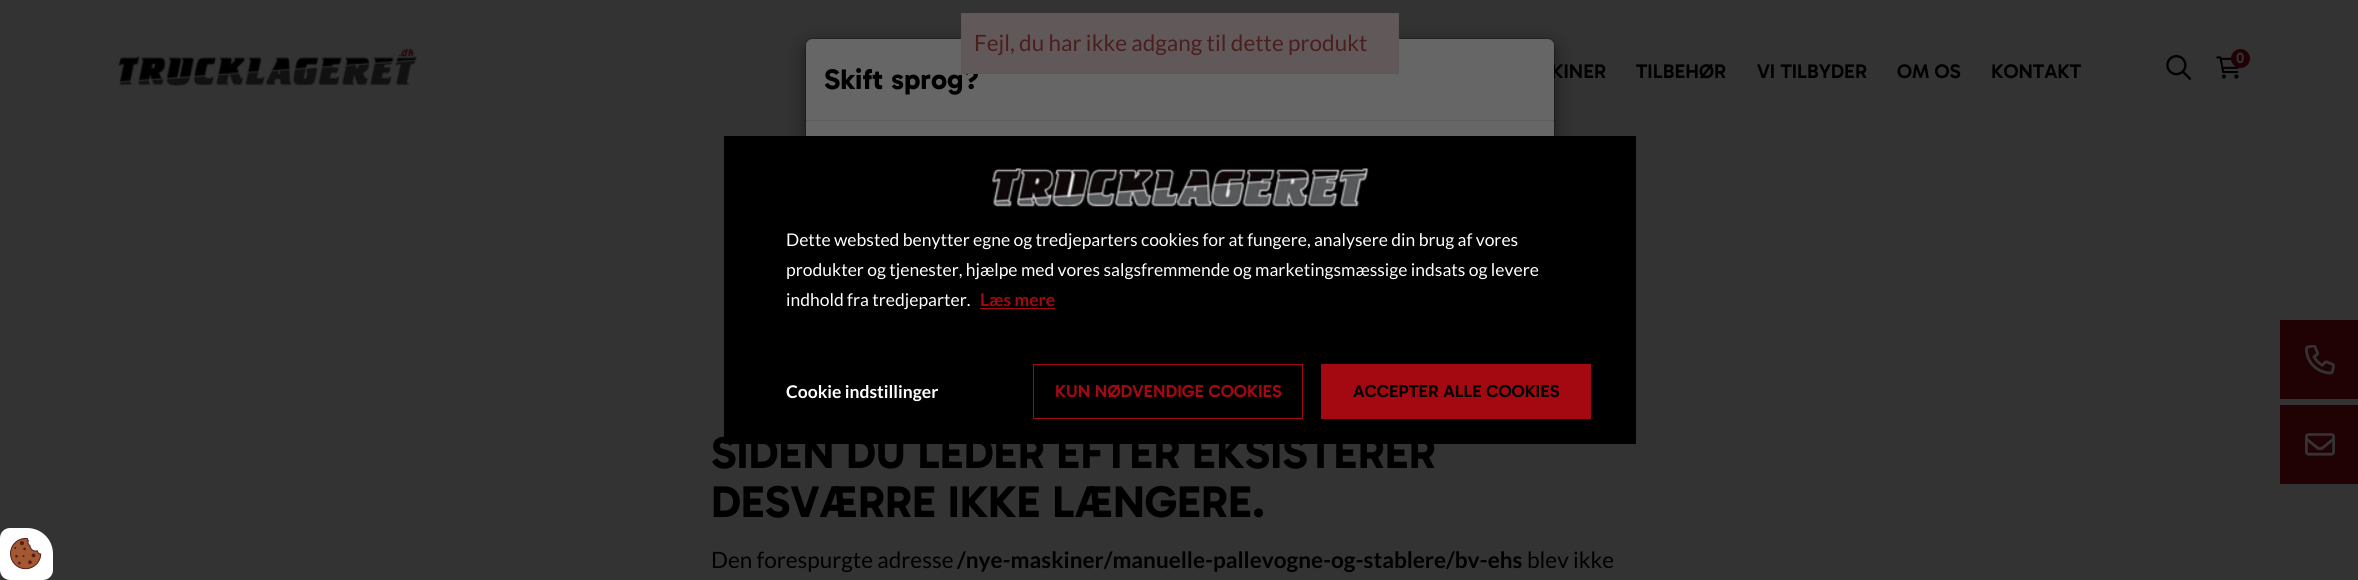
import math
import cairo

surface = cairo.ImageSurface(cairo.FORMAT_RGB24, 2358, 580)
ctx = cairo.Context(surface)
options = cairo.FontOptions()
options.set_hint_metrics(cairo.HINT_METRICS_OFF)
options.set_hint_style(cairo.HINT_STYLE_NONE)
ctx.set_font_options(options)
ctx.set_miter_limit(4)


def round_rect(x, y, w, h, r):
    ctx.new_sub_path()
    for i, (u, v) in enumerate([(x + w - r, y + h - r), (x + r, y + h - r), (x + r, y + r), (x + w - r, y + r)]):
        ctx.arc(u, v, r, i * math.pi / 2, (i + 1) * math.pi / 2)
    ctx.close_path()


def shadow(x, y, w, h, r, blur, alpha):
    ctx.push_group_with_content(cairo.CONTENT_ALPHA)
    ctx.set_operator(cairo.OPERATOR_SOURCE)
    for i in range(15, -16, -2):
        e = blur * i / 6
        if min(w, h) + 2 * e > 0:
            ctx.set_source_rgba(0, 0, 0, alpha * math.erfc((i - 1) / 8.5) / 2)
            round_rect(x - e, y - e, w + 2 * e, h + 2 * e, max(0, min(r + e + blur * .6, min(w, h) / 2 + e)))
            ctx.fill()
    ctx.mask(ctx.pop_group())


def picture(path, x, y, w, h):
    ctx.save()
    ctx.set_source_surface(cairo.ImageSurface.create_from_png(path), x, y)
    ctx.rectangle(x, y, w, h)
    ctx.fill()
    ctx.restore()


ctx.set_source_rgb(0.2, 0.2, 0.2)
ctx.paint()
ctx.set_source_rgb(0, 0, 0)
shadow(805, 44, 750, 211, 8, 9.5, 0.5)
ctx.select_font_face("Gabarito SemiBold")
ctx.set_font_size(20)
ctx.set_source_rgb(0, 0, 0)
ctx.move_to(1551, 78)
ctx.show_text("KINER")
ctx.set_source_rgb(0.4, 0.4, 0.4)
round_rect(806, 39, 748, 209, 6)
ctx.fill()
round_rect(805.5, 38.5, 749, 210, 7.5)
ctx.set_source_rgba(0, 0, 0, 0.2)
ctx.set_line_width(1)
ctx.stroke()
ctx.select_font_face("Gabarito", cairo.FONT_SLANT_NORMAL, cairo.FONT_WEIGHT_BOLD)
ctx.set_font_size(28.75)
ctx.set_source_rgb(0, 0, 0)
ctx.move_to(824, 89)
ctx.show_text("Skift sprog?")
ctx.set_source_rgb(0.38, 0.349, 0.349)
ctx.rectangle(961.5, 13.5, 437, 60)
ctx.fill_preserve()
ctx.set_source_rgb(0.373, 0.329, 0.337)
ctx.stroke()
ctx.select_font_face("Lato")
ctx.set_font_size(22.5)
ctx.set_source_rgb(0.29, 0.118, 0.114)
ctx.move_to(974, 51)
ctx.show_text("Fejl, du har ikke adgang til dette produkt")
ctx.set_source_rgb(0.361, 0.361, 0.361)
ctx.rectangle(806, 120, 748, 1)
ctx.fill()
picture("img1.png", 118, 48, 299, 39)
ctx.select_font_face("Gabarito SemiBold")
ctx.set_font_size(20)
ctx.set_source_rgb(0, 0, 0)
ctx.move_to(1636, 78)
ctx.show_text("TILBEHØR")
ctx.move_to(1757, 78)
ctx.show_text("VI TILBYDER")
ctx.move_to(1897, 78)
ctx.show_text("OM OS")
ctx.move_to(1991, 78)
ctx.show_text("KONTAKT")
picture("img2.png", 2166, 55, 25, 25)
picture("img3.png", 2216, 56, 23, 23)
ctx.set_source_rgb(0.129, 0.008, 0.016)
ctx.arc(2240.5, 58.5, 9.5, 0, 2 * math.pi)
ctx.fill()
ctx.set_font_size(15)
ctx.set_source_rgb(0.2, 0.2, 0.2)
ctx.move_to(2236, 63)
ctx.show_text("0")
ctx.set_source_rgb(0, 0, 0)
ctx.rectangle(724, 136, 912, 308)
ctx.fill()
picture("img4.png", 992, 168, 377, 39)
ctx.select_font_face("Lato")
ctx.set_font_size(17.5)
ctx.set_source_rgb(1, 1, 1)
ctx.move_to(786, 246)
ctx.show_text("Dette websted benytter egne og tredjeparters cookies for at fungere, analysere din brug af vores")
ctx.move_to(786, 276)
ctx.show_text("produkter og tjenester, hjælpe med vores salgsfremmende og marketingsmæssige indsats og levere")
ctx.move_to(786, 306)
ctx.show_text("indhold fra tredjeparter.")
ctx.select_font_face("Lato", cairo.FONT_SLANT_NORMAL, cairo.FONT_WEIGHT_BOLD)
ctx.set_source_rgb(0.643, 0.035, 0.067)
ctx.move_to(980, 306)
ctx.show_text("Læs mere")
ctx.rectangle(980, 308, 75, 1)
ctx.fill()
ctx.set_source_rgb(1, 1, 1)
ctx.move_to(786, 398)
ctx.show_text("Cookie indstillinger")
ctx.rectangle(1033.5, 364.5, 269, 54)
ctx.set_source_rgb(0.643, 0.035, 0.067)
ctx.stroke()
ctx.select_font_face("Gabarito SemiBold")
ctx.move_to(1055, 397)
ctx.show_text("KUN NØDVENDIGE COOKIES")
ctx.rectangle(1321, 364, 270, 55)
ctx.fill()
ctx.set_source_rgb(0, 0, 0)
ctx.move_to(1353, 397)
ctx.show_text("ACCEPTER ALLE COOKIES")
ctx.set_source_rgb(0.129, 0.008, 0.016)
ctx.rectangle(2280, 320, 78, 79)
ctx.fill()
picture("img5.png", 2305, 345, 30, 30)
ctx.rectangle(2280, 405, 78, 79)
ctx.fill()
picture("img6.png", 2305, 433, 30, 23)
ctx.set_source_rgb(1, 1, 1)
ctx.new_path()
ctx.move_to(10, 528)
ctx.line_to(27, 528)
ctx.curve_to(41.5, 528, 53, 539.5, 53, 554)
ctx.line_to(53, 570)
ctx.curve_to(53, 575.5, 48.5, 580, 43, 580)
ctx.line_to(10, 580)
ctx.curve_to(4.5, 580, 0, 575.5, 0, 570)
ctx.line_to(0, 538)
ctx.curve_to(0, 532.5, 4.5, 528, 10, 528)
ctx.close_path()
ctx.fill()
picture("img7.png", 10, 538, 32, 32)
ctx.select_font_face("Gabarito", cairo.FONT_SLANT_NORMAL, cairo.FONT_WEIGHT_BOLD)
ctx.set_font_size(45)
ctx.set_source_rgb(0, 0, 0)
ctx.move_to(711, 468)
ctx.show_text("SIDEN DU LEDER EFTER EKSISTERER")
ctx.move_to(711, 517)
ctx.show_text("DESVÆRRE IKKE LÆNGERE.")
ctx.select_font_face("Lato")
ctx.set_font_size(22.5)
ctx.move_to(711, 568)
ctx.show_text("Den forespurgte adresse")
ctx.select_font_face("Lato", cairo.FONT_SLANT_NORMAL, cairo.FONT_WEIGHT_BOLD)
ctx.move_to(957, 568)
ctx.show_text("/nye-maskiner/manuelle-pallevogne-og-stablere/bv-ehs")
ctx.select_font_face("Lato")
ctx.move_to(1527, 568)
ctx.show_text("blev ikke")
surface.write_to_png("page.png")
